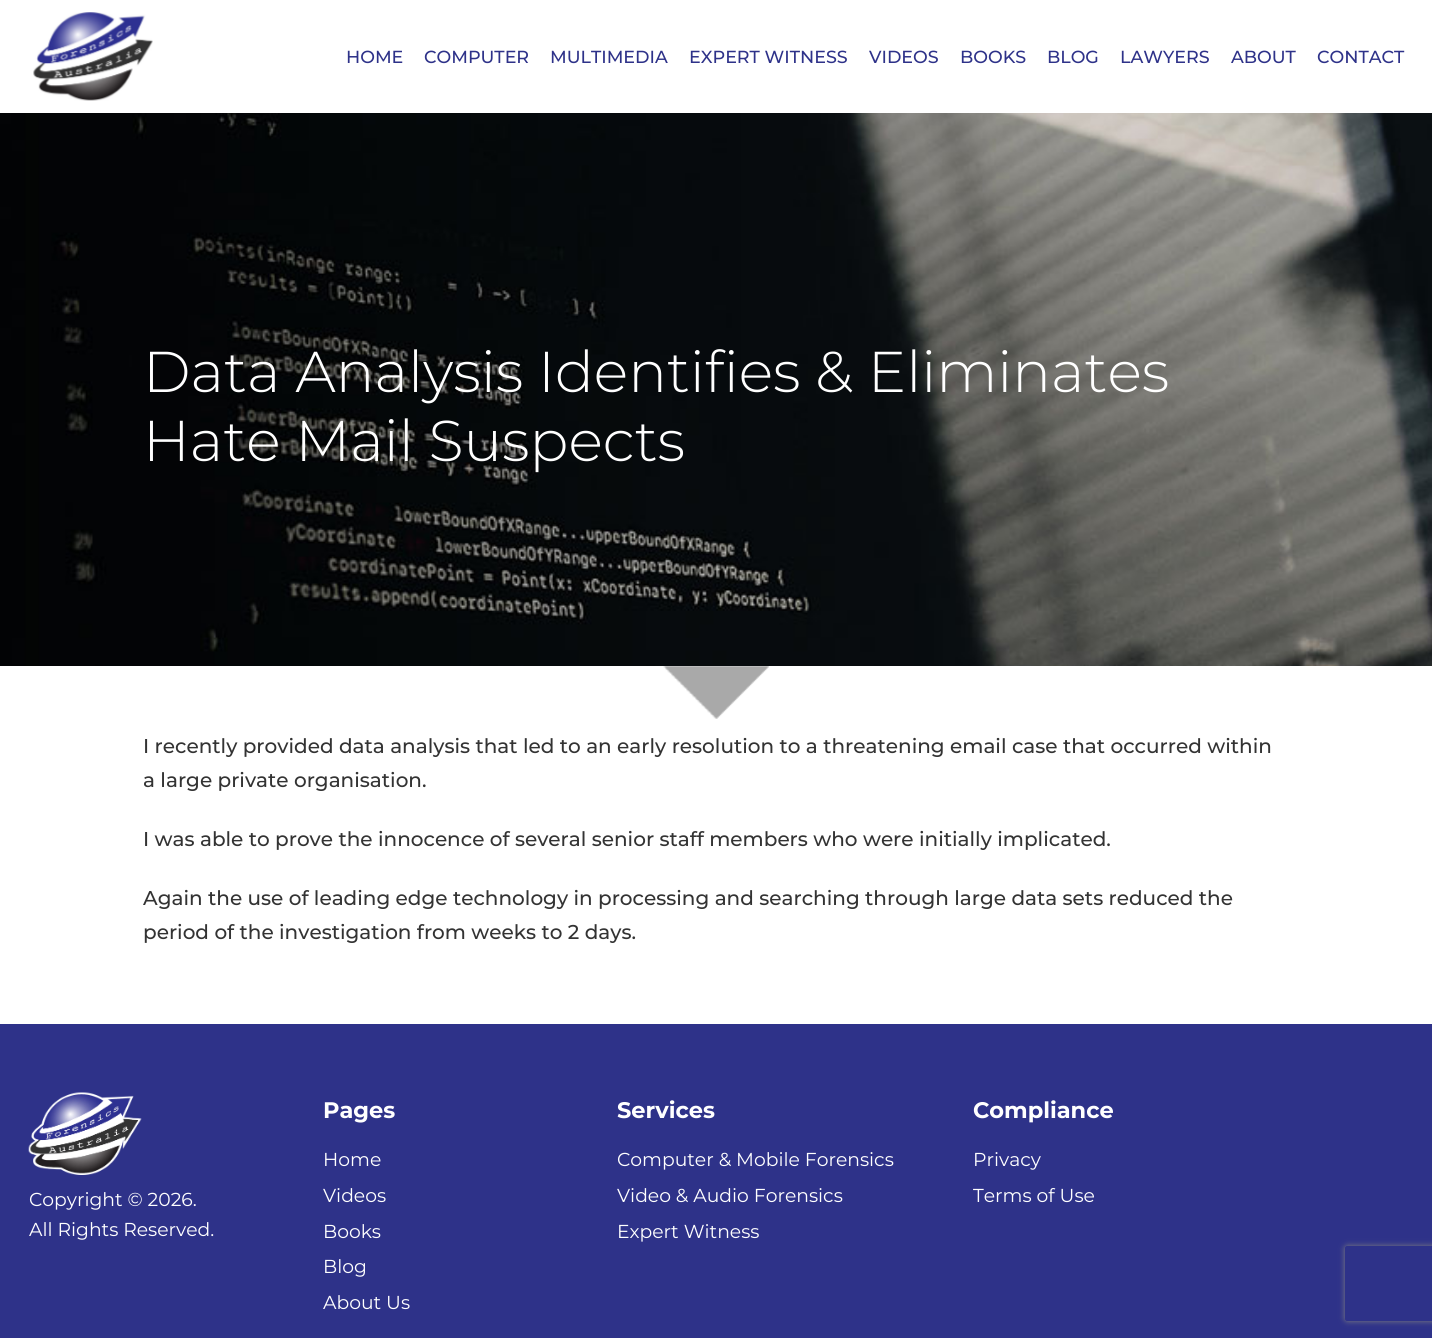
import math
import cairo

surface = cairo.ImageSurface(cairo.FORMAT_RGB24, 1432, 1338)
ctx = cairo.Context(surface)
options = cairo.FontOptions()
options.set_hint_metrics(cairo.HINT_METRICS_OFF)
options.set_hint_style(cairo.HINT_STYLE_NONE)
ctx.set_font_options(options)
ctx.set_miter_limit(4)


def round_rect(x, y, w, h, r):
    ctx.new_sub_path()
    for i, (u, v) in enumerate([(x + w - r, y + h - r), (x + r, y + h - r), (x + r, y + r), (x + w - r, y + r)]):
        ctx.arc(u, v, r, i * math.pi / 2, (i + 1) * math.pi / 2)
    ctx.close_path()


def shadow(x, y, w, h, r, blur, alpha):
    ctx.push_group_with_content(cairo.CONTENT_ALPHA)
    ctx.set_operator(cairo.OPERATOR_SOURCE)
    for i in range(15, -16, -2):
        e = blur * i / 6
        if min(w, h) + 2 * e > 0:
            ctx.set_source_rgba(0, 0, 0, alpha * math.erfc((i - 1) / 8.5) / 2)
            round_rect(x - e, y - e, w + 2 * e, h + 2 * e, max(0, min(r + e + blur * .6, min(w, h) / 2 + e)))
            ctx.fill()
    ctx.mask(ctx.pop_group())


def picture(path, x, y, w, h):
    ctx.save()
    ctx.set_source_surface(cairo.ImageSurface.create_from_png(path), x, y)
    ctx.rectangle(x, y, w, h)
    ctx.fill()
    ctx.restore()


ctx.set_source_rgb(0.18, 0.196, 0.537)
ctx.paint()
ctx.set_source_rgb(1, 1, 1)
ctx.rectangle(0, 0, 1432, 113)
ctx.fill()
picture("img1.png", 33, 12, 120, 89)
ctx.select_font_face("Montserrat Medium")
ctx.set_font_size(17.5)
ctx.set_source_rgb(0.18, 0.196, 0.537)
ctx.move_to(346, 63)
ctx.show_text("HOME")
ctx.move_to(424, 63)
ctx.show_text("COMPUTER")
ctx.move_to(550, 63)
ctx.show_text("MULTIMEDIA")
ctx.move_to(689, 63)
ctx.show_text("EXPERT WITNESS")
ctx.move_to(869, 63)
ctx.show_text("VIDEOS")
ctx.move_to(960, 63)
ctx.show_text("BOOKS")
ctx.move_to(1047, 63)
ctx.show_text("BLOG")
ctx.move_to(1120, 63)
ctx.show_text("LAWYERS")
ctx.move_to(1231, 63)
ctx.show_text("ABOUT")
ctx.move_to(1317, 63)
ctx.show_text("CONTACT")
picture("img2.png", 0, 113, 1432, 553)
ctx.select_font_face("Montserrat Light")
ctx.set_font_size(57.5)
ctx.set_source_rgb(1, 1, 1)
ctx.move_to(143, 392)
ctx.show_text("Data Analysis Identifies & Eliminates")
ctx.move_to(143, 461)
ctx.show_text("Hate Mail Suspects")
ctx.rectangle(0, 666, 1432, 358)
ctx.fill()
picture("img3.png", 663, 666, 106, 53)
ctx.select_font_face("Montserrat Medium")
ctx.set_font_size(20)
ctx.set_source_rgb(0.2, 0.2, 0.2)
ctx.move_to(143, 753)
ctx.show_text("I recently provided data analysis that led to an early resolution to a threatening email case that occurred within")
ctx.move_to(143, 787)
ctx.show_text("a large private organisation.")
ctx.move_to(143, 846)
ctx.show_text("I was able to prove the innocence of several senior staff members who were initially implicated.")
ctx.move_to(143, 905)
ctx.show_text("Again the use of leading edge technology in processing and searching through large data sets reduced the")
ctx.move_to(143, 939)
ctx.show_text("period of the investigation from weeks to 2 days.")
picture("img4.png", 28, 1092, 114, 83)
ctx.select_font_face("Montserrat")
ctx.set_font_size(18.75)
ctx.set_source_rgb(1, 1, 1)
ctx.move_to(29, 1206)
ctx.show_text("Copyright © 2026.")
ctx.move_to(29, 1236)
ctx.show_text("All Rights Reserved.")
ctx.select_font_face("Montserrat", cairo.FONT_SLANT_NORMAL, cairo.FONT_WEIGHT_BOLD)
ctx.set_font_size(22.5)
ctx.move_to(323, 1118)
ctx.show_text("Pages")
ctx.select_font_face("Montserrat")
ctx.set_font_size(18.75)
ctx.move_to(323, 1166)
ctx.show_text("Home")
ctx.move_to(323, 1202)
ctx.show_text("Videos")
ctx.move_to(323, 1238)
ctx.show_text("Books")
ctx.move_to(323, 1273)
ctx.show_text("Blog")
ctx.move_to(323, 1309)
ctx.show_text("About Us")
ctx.select_font_face("Montserrat", cairo.FONT_SLANT_NORMAL, cairo.FONT_WEIGHT_BOLD)
ctx.set_font_size(22.5)
ctx.move_to(617, 1118)
ctx.show_text("Services")
ctx.select_font_face("Montserrat")
ctx.set_font_size(18.75)
ctx.move_to(617, 1166)
ctx.show_text("Computer & Mobile Forensics")
ctx.move_to(617, 1202)
ctx.show_text("Video & Audio Forensics")
ctx.move_to(617, 1238)
ctx.show_text("Expert Witness")
ctx.select_font_face("Montserrat", cairo.FONT_SLANT_NORMAL, cairo.FONT_WEIGHT_BOLD)
ctx.set_font_size(22.5)
ctx.move_to(973, 1118)
ctx.show_text("Compliance")
ctx.select_font_face("Montserrat")
ctx.set_font_size(18.75)
ctx.move_to(973, 1166)
ctx.show_text("Privacy")
ctx.move_to(973, 1202)
ctx.show_text("Terms of Use")
ctx.save()
ctx.set_fill_rule(cairo.FILL_RULE_EVEN_ODD)
ctx.new_path()
ctx.move_to(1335, 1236)
ctx.line_to(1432, 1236)
ctx.line_to(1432, 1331)
ctx.line_to(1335, 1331)
ctx.close_path()
ctx.move_to(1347.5, 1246)
ctx.line_to(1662.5, 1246)
ctx.curve_to(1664, 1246, 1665, 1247, 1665, 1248.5)
ctx.line_to(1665, 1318.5)
ctx.curve_to(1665, 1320, 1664, 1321, 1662.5, 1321)
ctx.line_to(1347.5, 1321)
ctx.curve_to(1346, 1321, 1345, 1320, 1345, 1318.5)
ctx.line_to(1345, 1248.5)
ctx.curve_to(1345, 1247, 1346, 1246, 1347.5, 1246)
ctx.close_path()
ctx.clip()
ctx.set_source_rgb(0.502, 0.502, 0.502)
shadow(1345, 1246, 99, 75, 2.5, 3, 1)
ctx.restore()
surface.write_to_png("page.png")
